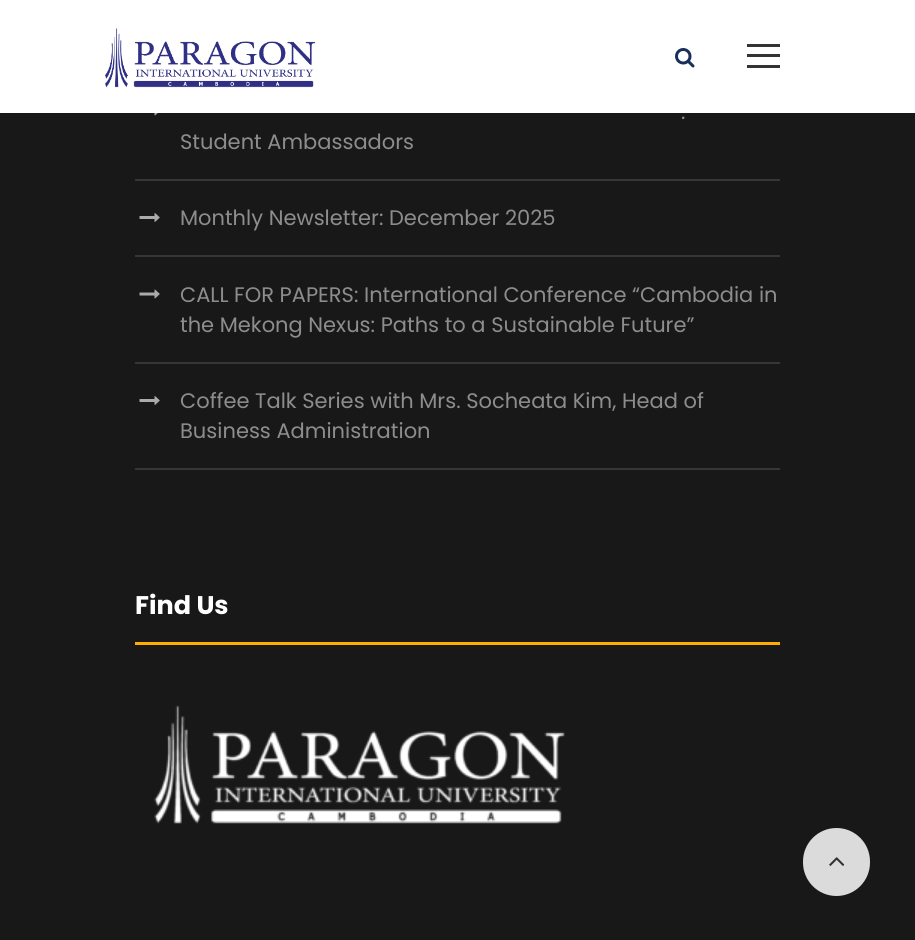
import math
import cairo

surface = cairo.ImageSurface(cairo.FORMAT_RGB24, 915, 940)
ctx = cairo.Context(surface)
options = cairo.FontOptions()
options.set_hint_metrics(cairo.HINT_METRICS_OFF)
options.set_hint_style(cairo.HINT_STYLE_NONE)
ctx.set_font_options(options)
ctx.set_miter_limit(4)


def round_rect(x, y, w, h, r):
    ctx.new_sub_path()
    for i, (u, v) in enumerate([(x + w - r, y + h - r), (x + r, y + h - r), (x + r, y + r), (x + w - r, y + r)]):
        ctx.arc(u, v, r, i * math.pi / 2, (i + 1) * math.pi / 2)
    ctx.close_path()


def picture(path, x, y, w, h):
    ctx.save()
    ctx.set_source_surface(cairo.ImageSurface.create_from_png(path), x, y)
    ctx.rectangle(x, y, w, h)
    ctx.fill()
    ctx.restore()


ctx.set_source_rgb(0.094, 0.094, 0.094)
ctx.paint()
ctx.set_source_rgb(1, 1, 1)
ctx.rectangle(0, 0, 915, 113)
ctx.fill()
picture("img1.png", 105, 28, 210, 60)
picture("img2.png", 675, 48, 20, 20)
ctx.set_source_rgb(0.2, 0.2, 0.2)
ctx.rectangle(747, 44, 33, 3)
ctx.fill()
ctx.rectangle(747, 54, 33, 3)
ctx.fill()
ctx.rectangle(747, 65, 33, 3)
ctx.fill()
ctx.set_source_rgb(0.212, 0.212, 0.212)
ctx.rectangle(135, 179, 645, 2)
ctx.fill()
picture("img3.png", 154, 113, 4, 3)
ctx.select_font_face("Poppins")
ctx.set_font_size(21)
ctx.set_source_rgb(0.553, 0.553, 0.553)
ctx.move_to(681, 119)
ctx.show_text(".")
ctx.move_to(180, 149)
ctx.show_text("Student Ambassadors")
ctx.set_source_rgb(0.212, 0.212, 0.212)
ctx.rectangle(135, 255, 645, 2)
ctx.fill()
picture("img4.png", 139, 213, 21, 9)
ctx.set_source_rgb(0.553, 0.553, 0.553)
ctx.move_to(180, 225)
ctx.show_text("Monthly Newsletter: December 2025")
ctx.set_source_rgb(0.212, 0.212, 0.212)
ctx.rectangle(135, 362, 645, 2)
ctx.fill()
picture("img5.png", 139, 289, 21, 10)
ctx.set_source_rgb(0.553, 0.553, 0.553)
ctx.move_to(180, 302)
ctx.show_text("CALL FOR PAPERS: International Conference “Cambodia in")
ctx.move_to(180, 332)
ctx.show_text("the Mekong Nexus: Paths to a Sustainable Future”")
ctx.set_source_rgb(0.212, 0.212, 0.212)
ctx.rectangle(135, 468, 645, 2)
ctx.fill()
picture("img4.png", 139, 396, 21, 9)
ctx.set_source_rgb(0.553, 0.553, 0.553)
ctx.move_to(180, 408)
ctx.show_text("Coffee Talk Series with Mrs. Socheata Kim, Head of")
ctx.move_to(180, 438)
ctx.show_text("Business Administration")
ctx.set_source_rgb(1, 0.682, 0)
ctx.rectangle(135, 642, 645, 3)
ctx.fill()
ctx.select_font_face("Poppins", cairo.FONT_SLANT_NORMAL, cairo.FONT_WEIGHT_BOLD)
ctx.set_font_size(25.5)
ctx.set_source_rgb(1, 1, 1)
ctx.move_to(135, 614)
ctx.show_text("Find Us")
picture("img6.png", 154, 705, 411, 119)
ctx.set_source_rgb(0.859, 0.859, 0.859)
round_rect(803, 828, 67, 68, 33.5)
ctx.fill()
picture("img7.png", 829, 857, 16, 9)
surface.write_to_png("page.png")
